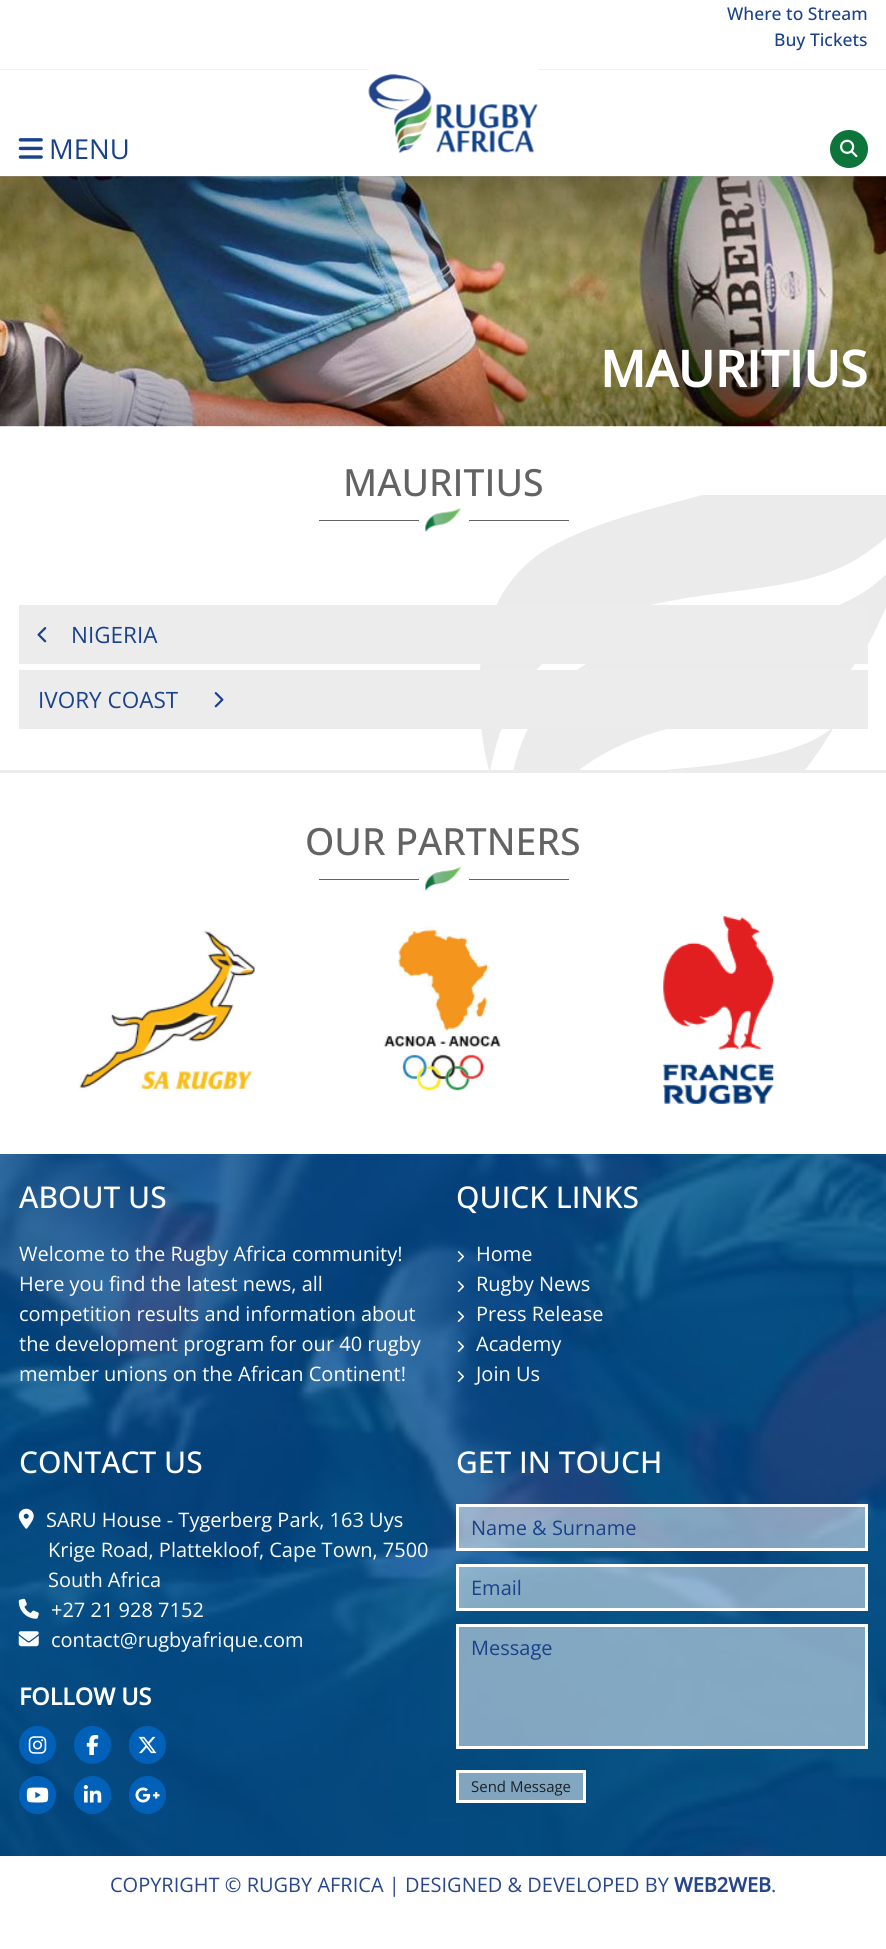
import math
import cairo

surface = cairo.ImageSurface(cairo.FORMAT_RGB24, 886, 1949)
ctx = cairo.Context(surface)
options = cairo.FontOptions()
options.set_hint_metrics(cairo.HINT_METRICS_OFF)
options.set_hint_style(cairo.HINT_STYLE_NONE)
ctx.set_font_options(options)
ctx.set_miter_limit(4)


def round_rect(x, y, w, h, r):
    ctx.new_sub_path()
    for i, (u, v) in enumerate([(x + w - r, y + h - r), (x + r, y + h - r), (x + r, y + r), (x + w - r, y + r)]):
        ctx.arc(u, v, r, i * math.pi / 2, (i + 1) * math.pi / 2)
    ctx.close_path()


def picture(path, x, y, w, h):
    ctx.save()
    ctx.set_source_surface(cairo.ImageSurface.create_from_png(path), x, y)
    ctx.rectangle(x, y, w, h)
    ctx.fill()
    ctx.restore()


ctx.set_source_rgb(1, 1, 1)
ctx.paint()
ctx.set_source_rgb(0.949, 0.949, 0.949)
ctx.rectangle(0, 69, 886, 1)
ctx.fill()
ctx.select_font_face("Open Sans Medium")
ctx.set_font_size(17.5)
ctx.set_source_rgb(0.102, 0.259, 0.541)
ctx.move_to(727, 20)
ctx.show_text("Where to Stream")
ctx.move_to(774, 46)
ctx.show_text("Buy Tickets")
picture("img1.png", 18, 138, 25, 21)
ctx.select_font_face("Open Sans")
ctx.set_font_size(27.5)
ctx.move_to(49, 159)
ctx.show_text("MENU")
ctx.set_source_rgb(1, 1, 1)
ctx.rectangle(369, 69, 169, 1)
ctx.fill()
picture("img2.png", 368, 74, 170, 80)
ctx.set_source_rgb(0.051, 0.455, 0.227)
ctx.arc(849, 149, 19, 0, 2 * math.pi)
ctx.fill()
picture("img3.png", 840, 139, 18, 19)
picture("img4.png", 0, 176, 886, 251)
gradient = cairo.LinearGradient(443, 176, 443, 426)
gradient.add_color_stop_rgba(0, 0, 0, 0, 0.3)
gradient.add_color_stop_rgba(0.5, 0, 0, 0, 0)
gradient.add_color_stop_rgba(1, 0, 0, 0, 0.3)
ctx.set_source(gradient)
ctx.rectangle(0, 176, 886, 250)
ctx.fill()
ctx.select_font_face("Open Sans", cairo.FONT_SLANT_NORMAL, cairo.FONT_WEIGHT_BOLD)
ctx.set_font_size(50)
ctx.set_source_rgb(1, 1, 1)
ctx.move_to(600, 387)
ctx.show_text("MAURITIUS")
picture("img8.png", 479, 495, 407, 275)
ctx.select_font_face("Open Sans Medium")
ctx.set_font_size(37.5)
ctx.set_source_rgb(0.388, 0.388, 0.388)
ctx.move_to(343, 496)
ctx.show_text("MAURITIUS")
picture("img5.png", 425, 507, 36, 25)
ctx.rectangle(319, 520, 100, 1)
ctx.fill()
ctx.rectangle(469, 520, 100, 1)
ctx.fill()
ctx.set_source_rgb(0.922, 0.922, 0.922)
ctx.rectangle(19, 605, 849, 59)
ctx.fill()
picture("img6.png", 37, 627, 10, 16)
ctx.select_font_face("Open Sans")
ctx.set_font_size(22.5)
ctx.set_source_rgb(0.102, 0.259, 0.541)
ctx.move_to(71, 643)
ctx.show_text("NIGERIA")
ctx.set_source_rgb(0.922, 0.922, 0.922)
ctx.rectangle(19, 670, 849, 59)
ctx.fill()
ctx.set_source_rgb(0.102, 0.259, 0.541)
ctx.move_to(38, 708)
ctx.show_text("IVORY COAST")
picture("img7.png", 214, 692, 10, 16)
ctx.set_source_rgb(0.922, 0.922, 0.922)
ctx.rectangle(0, 770, 886, 3)
ctx.fill()
ctx.select_font_face("Open Sans Medium")
ctx.set_font_size(37.5)
ctx.set_source_rgb(0.388, 0.388, 0.388)
ctx.move_to(305, 855)
ctx.show_text("OUR PARTNERS")
picture("img9.png", 425, 866, 37, 25)
ctx.rectangle(319, 879, 100, 1)
ctx.fill()
ctx.rectangle(469, 879, 100, 1)
ctx.fill()
picture("img10.png", 78, 931, 178, 160)
picture("img11.png", 383, 926, 119, 166)
picture("img12.png", 663, 916, 111, 188)
picture("img13.png", 0, 1154, 886, 702)
ctx.set_font_size(30)
ctx.set_source_rgb(1, 1, 1)
ctx.move_to(19, 1208)
ctx.show_text("ABOUT US")
ctx.select_font_face("Open Sans")
ctx.set_font_size(20)
ctx.move_to(19, 1261)
ctx.show_text("Welcome to the Rugby Africa community!")
ctx.move_to(19, 1291)
ctx.show_text("Here you find the latest news, all")
ctx.move_to(19, 1321)
ctx.show_text("competition results and information about")
ctx.move_to(19, 1351)
ctx.show_text("the development program for our 40 rugby")
ctx.move_to(19, 1381)
ctx.show_text("member unions on the African Continent!")
ctx.select_font_face("Open Sans Medium")
ctx.set_font_size(30)
ctx.move_to(456, 1208)
ctx.show_text("QUICK LINKS")
picture("img14.png", 457, 1251, 7, 11)
ctx.select_font_face("Open Sans")
ctx.set_font_size(20)
ctx.move_to(476, 1261)
ctx.show_text("Home")
picture("img15.png", 457, 1281, 7, 11)
ctx.move_to(476, 1291)
ctx.show_text("Rugby News")
picture("img16.png", 457, 1311, 7, 11)
ctx.move_to(476, 1321)
ctx.show_text("Press Release")
picture("img17.png", 457, 1341, 7, 11)
ctx.move_to(476, 1351)
ctx.show_text("Academy")
picture("img18.png", 457, 1371, 7, 11)
ctx.move_to(476, 1381)
ctx.show_text("Join Us")
ctx.select_font_face("Open Sans Medium")
ctx.set_font_size(30)
ctx.move_to(19, 1473)
ctx.show_text("CONTACT US")
picture("img19.png", 18, 1508, 16, 21)
ctx.select_font_face("Open Sans")
ctx.set_font_size(20)
ctx.move_to(46, 1527)
ctx.show_text("SARU House - Tygerberg Park, 163 Uys")
ctx.move_to(48, 1557)
ctx.show_text("Krige Road, Plattekloof, Cape Town, 7500")
ctx.move_to(48, 1587)
ctx.show_text("South Africa")
picture("img20.png", 18, 1598, 21, 21)
ctx.move_to(51, 1617)
ctx.show_text("+27 21 928 7152")
picture("img21.png", 18, 1631, 21, 16)
ctx.move_to(51, 1647)
ctx.show_text("contact@rugbyafrique.com")
ctx.select_font_face("Open Sans", cairo.FONT_SLANT_NORMAL, cairo.FONT_WEIGHT_BOLD)
ctx.set_font_size(23.5)
ctx.move_to(19, 1705)
ctx.show_text("FOLLOW US")
ctx.set_source_rgb(0.004, 0.376, 0.722)
round_rect(19, 1726, 37, 38, 18.5)
ctx.fill()
picture("img22.png", 28, 1736, 19, 18)
round_rect(74, 1726, 37, 38, 18.5)
ctx.fill()
picture("img23.png", 86, 1735, 13, 20)
round_rect(129, 1726, 37, 38, 18.5)
ctx.fill()
picture("img24.png", 138, 1736, 19, 18)
round_rect(19, 1776, 37, 38, 18.5)
ctx.fill()
picture("img25.png", 26, 1787, 23, 16)
round_rect(74, 1776, 37, 38, 18.5)
ctx.fill()
picture("img26.png", 83, 1785, 19, 18)
round_rect(129, 1776, 37, 38, 18.5)
ctx.fill()
picture("img27.png", 135, 1787, 25, 16)
ctx.select_font_face("Open Sans Medium")
ctx.set_font_size(30)
ctx.set_source_rgb(1, 1, 1)
ctx.move_to(456, 1473)
ctx.show_text("GET IN TOUCH")
ctx.set_source_rgba(1, 1, 1, 0.5)
ctx.rectangle(457.5, 1505.5, 409, 44)
ctx.fill_preserve()
ctx.set_source_rgb(1, 1, 1)
ctx.set_line_width(3)
ctx.stroke()
ctx.select_font_face("Open Sans")
ctx.set_font_size(20)
ctx.set_source_rgb(0.102, 0.259, 0.541)
ctx.move_to(471, 1535)
ctx.show_text("Name & Surname")
ctx.set_source_rgba(1, 1, 1, 0.5)
ctx.rectangle(457.5, 1565.5, 409, 44)
ctx.fill_preserve()
ctx.set_source_rgb(1, 1, 1)
ctx.stroke()
ctx.set_source_rgb(0.102, 0.259, 0.541)
ctx.move_to(471, 1595)
ctx.show_text("Email")
ctx.set_source_rgba(1, 1, 1, 0.5)
ctx.rectangle(457.5, 1625.5, 409, 122)
ctx.fill_preserve()
ctx.set_source_rgb(1, 1, 1)
ctx.stroke()
ctx.set_source_rgb(0.102, 0.259, 0.541)
ctx.move_to(471, 1655)
ctx.show_text("Message")
ctx.set_source_rgba(1, 1, 1, 0.5)
ctx.rectangle(457.5, 1771.5, 127, 30)
ctx.fill_preserve()
ctx.set_source_rgb(1, 1, 1)
ctx.stroke()
ctx.set_font_size(15)
ctx.set_source_rgb(0.102, 0.129, 0.149)
ctx.move_to(471, 1792)
ctx.show_text("Send Message")
ctx.set_font_size(20)
ctx.set_source_rgb(0.153, 0.278, 0.541)
ctx.move_to(110, 1892)
ctx.show_text("COPYRIGHT © RUGBY AFRICA | DESIGNED & DEVELOPED BY")
ctx.select_font_face("Open Sans", cairo.FONT_SLANT_NORMAL, cairo.FONT_WEIGHT_BOLD)
ctx.move_to(674, 1892)
ctx.show_text("WEB2WEB")
ctx.select_font_face("Open Sans")
ctx.move_to(771, 1892)
ctx.show_text(".")
surface.write_to_png("page.png")
